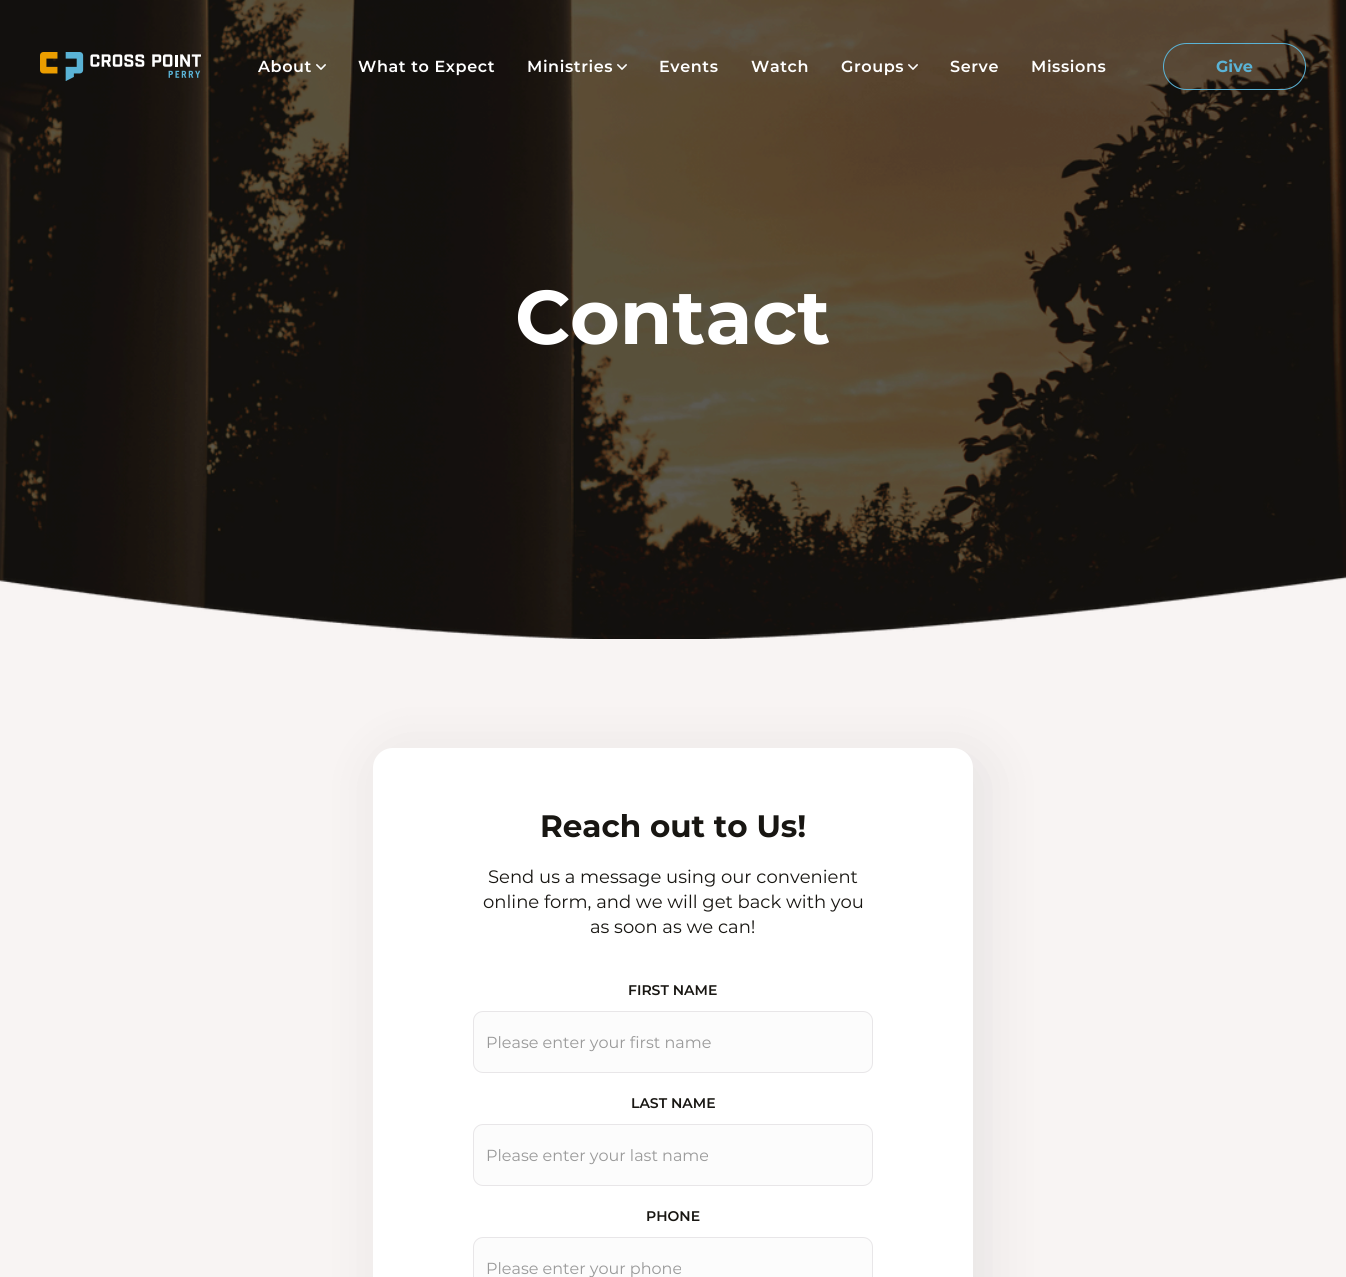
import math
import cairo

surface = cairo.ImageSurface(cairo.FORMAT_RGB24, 1346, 1277)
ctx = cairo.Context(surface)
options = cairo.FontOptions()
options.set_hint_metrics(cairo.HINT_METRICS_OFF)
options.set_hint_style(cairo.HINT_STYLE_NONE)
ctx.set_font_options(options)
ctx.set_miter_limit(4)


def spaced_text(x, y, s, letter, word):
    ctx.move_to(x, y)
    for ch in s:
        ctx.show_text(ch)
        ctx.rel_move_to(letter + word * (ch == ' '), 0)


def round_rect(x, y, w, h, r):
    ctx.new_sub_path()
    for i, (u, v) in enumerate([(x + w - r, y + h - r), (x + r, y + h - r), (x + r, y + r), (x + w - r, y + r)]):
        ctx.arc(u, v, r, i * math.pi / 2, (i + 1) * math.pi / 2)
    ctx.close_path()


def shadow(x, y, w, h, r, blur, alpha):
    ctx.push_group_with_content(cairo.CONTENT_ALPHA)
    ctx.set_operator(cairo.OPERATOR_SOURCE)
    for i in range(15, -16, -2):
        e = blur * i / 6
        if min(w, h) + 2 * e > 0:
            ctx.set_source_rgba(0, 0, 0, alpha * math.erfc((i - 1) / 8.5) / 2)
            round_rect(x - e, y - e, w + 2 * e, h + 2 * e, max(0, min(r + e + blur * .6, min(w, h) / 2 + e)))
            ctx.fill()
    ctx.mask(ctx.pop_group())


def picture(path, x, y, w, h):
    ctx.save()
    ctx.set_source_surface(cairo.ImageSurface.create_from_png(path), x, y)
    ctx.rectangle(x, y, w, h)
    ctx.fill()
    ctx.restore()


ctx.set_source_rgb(0.969, 0.957, 0.953)
ctx.paint()
picture("img1.png", 0, 0, 1346, 639)
picture("img2.png", 40, 52, 161, 29)
ctx.select_font_face("Montserrat SemiBold")
ctx.set_font_size(16)
ctx.set_source_rgb(1, 1, 1)
spaced_text(258, 72, "About", 0.6, 0)
picture("img3.png", 316, 64, 10, 6)
spaced_text(358, 72, "What to Expect", 0.6, 0)
spaced_text(527, 72, "Ministries", 0.6, 0)
picture("img4.png", 617, 64, 10, 6)
spaced_text(659, 72, "Events", 0.6, 0)
spaced_text(751, 72, "Watch", 0.6, 0)
spaced_text(841, 72, "Groups", 0.6, 0)
picture("img5.png", 908, 64, 10, 6)
spaced_text(950, 72, "Serve", 0.6, 0)
spaced_text(1031, 72, "Missions", 0.6, 0)
round_rect(1163.5, 43.5, 142, 46, 23)
ctx.set_source_rgb(0.353, 0.702, 0.839)
ctx.set_line_width(1)
ctx.stroke()
ctx.select_font_face("Montserrat", cairo.FONT_SLANT_NORMAL, cairo.FONT_WEIGHT_BOLD)
ctx.move_to(1216, 72)
ctx.show_text("Give")
ctx.set_font_size(76)
ctx.set_source_rgb(1, 1, 1)
ctx.move_to(515, 344)
ctx.show_text("Contact")
ctx.set_source_rgb(0.192, 0.192, 0.192)
shadow(369, 744, 628, 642, 34, 25, 0.07)
ctx.set_source_rgb(1, 1, 1)
round_rect(373, 748, 600, 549, 20)
ctx.fill()
ctx.set_font_size(31)
ctx.set_source_rgb(0.094, 0.086, 0.071)
ctx.move_to(540, 837)
ctx.show_text("Reach out to Us!")
ctx.select_font_face("Montserrat")
ctx.set_font_size(18)
ctx.move_to(488, 883)
ctx.show_text("Send us a message using our convenient")
ctx.move_to(483, 908)
ctx.show_text("online form, and we will get back with you")
ctx.move_to(590, 933)
ctx.show_text("as soon as we can!")
ctx.select_font_face("Montserrat SemiBold")
ctx.set_font_size(14)
ctx.move_to(628, 995)
ctx.show_text("FIRST NAME")
ctx.set_source_rgb(0.988, 0.988, 0.988)
round_rect(473.5, 1011.5, 399, 61, 9.5)
ctx.fill_preserve()
ctx.set_source_rgb(0.91, 0.902, 0.91)
ctx.stroke()
ctx.select_font_face("Montserrat")
ctx.set_font_size(16)
ctx.set_source_rgb(0.6, 0.6, 0.6)
ctx.move_to(486, 1048)
ctx.show_text("Please enter your first name")
ctx.select_font_face("Montserrat SemiBold")
ctx.set_font_size(14)
ctx.set_source_rgb(0.094, 0.086, 0.071)
ctx.move_to(631, 1108)
ctx.show_text("LAST NAME")
ctx.set_source_rgb(0.988, 0.988, 0.988)
round_rect(473.5, 1124.5, 399, 61, 9.5)
ctx.fill_preserve()
ctx.set_source_rgb(0.91, 0.902, 0.91)
ctx.stroke()
ctx.select_font_face("Montserrat")
ctx.set_font_size(16)
ctx.set_source_rgb(0.6, 0.6, 0.6)
ctx.move_to(486, 1161)
ctx.show_text("Please enter your last name")
ctx.select_font_face("Montserrat SemiBold")
ctx.set_font_size(14)
ctx.set_source_rgb(0.094, 0.086, 0.071)
ctx.move_to(646, 1221)
ctx.show_text("PHONE")
ctx.set_source_rgb(0.988, 0.988, 0.988)
round_rect(473.5, 1237.5, 399, 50, 9.5)
ctx.fill_preserve()
ctx.set_source_rgb(0.91, 0.902, 0.91)
ctx.stroke()
ctx.select_font_face("Montserrat")
ctx.set_font_size(16)
ctx.set_source_rgb(0.6, 0.6, 0.6)
ctx.move_to(486, 1274)
ctx.show_text("Please enter your phone")
surface.write_to_png("page.png")
